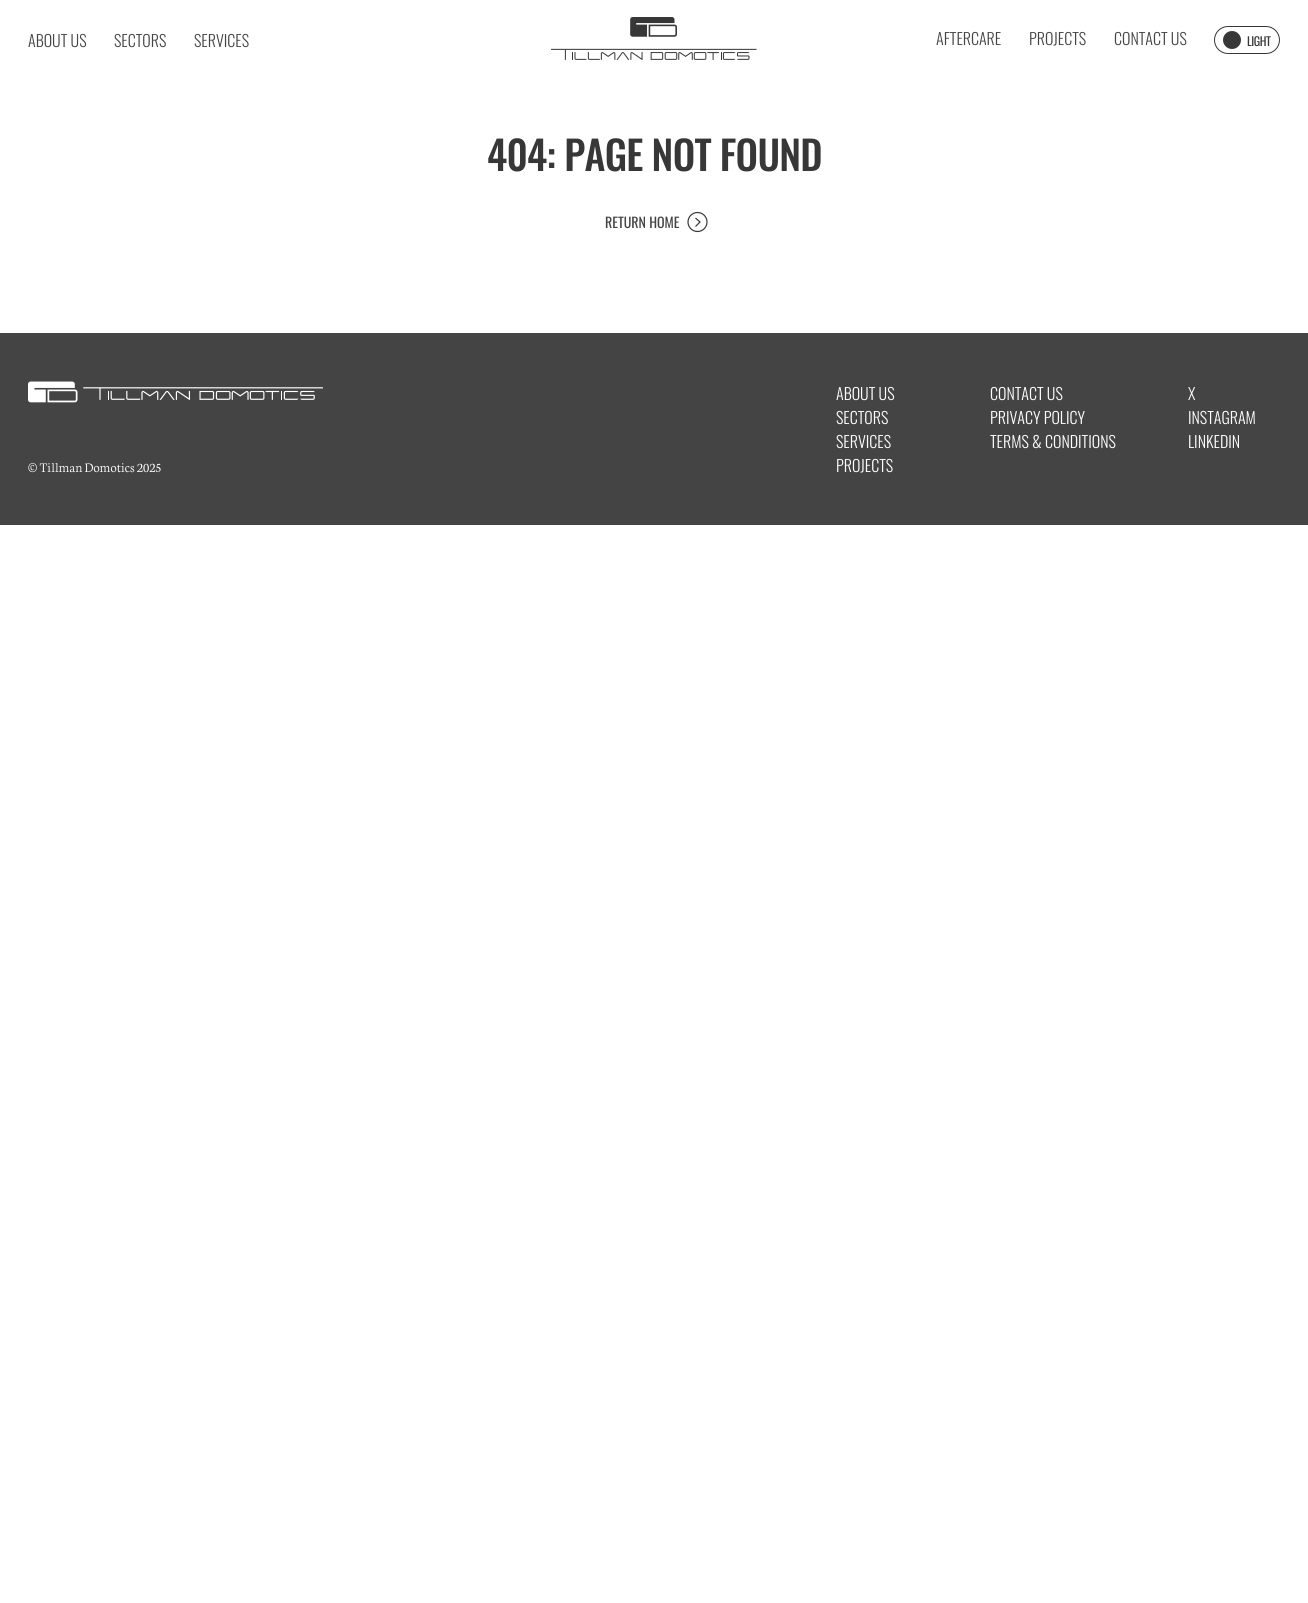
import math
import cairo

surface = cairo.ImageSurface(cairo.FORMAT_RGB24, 1308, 1603)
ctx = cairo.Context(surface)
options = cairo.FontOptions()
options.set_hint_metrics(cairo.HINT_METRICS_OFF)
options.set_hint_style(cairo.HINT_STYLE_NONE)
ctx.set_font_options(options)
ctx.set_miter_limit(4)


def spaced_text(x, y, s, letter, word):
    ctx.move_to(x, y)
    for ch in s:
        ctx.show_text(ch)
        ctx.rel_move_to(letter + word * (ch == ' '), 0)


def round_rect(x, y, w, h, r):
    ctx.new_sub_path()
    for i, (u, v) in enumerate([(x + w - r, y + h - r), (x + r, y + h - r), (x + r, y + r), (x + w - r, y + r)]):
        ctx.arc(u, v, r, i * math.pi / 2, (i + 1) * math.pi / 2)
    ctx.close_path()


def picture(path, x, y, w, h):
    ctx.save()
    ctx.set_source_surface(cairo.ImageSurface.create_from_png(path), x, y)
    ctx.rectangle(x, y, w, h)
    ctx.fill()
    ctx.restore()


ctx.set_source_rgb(1, 1, 1)
ctx.paint()
ctx.select_font_face("Oswald Light")
ctx.set_font_size(16)
ctx.set_source_rgb(0.267, 0.267, 0.267)
ctx.move_to(28, 47)
ctx.show_text("ABOUT US")
ctx.move_to(114, 47)
ctx.show_text("SECTORS")
ctx.move_to(194, 47)
ctx.show_text("SERVICES")
picture("img1.png", 551, 17, 206, 43)
ctx.move_to(936, 45)
ctx.show_text("AFTERCARE")
ctx.move_to(1029, 45)
ctx.show_text("PROJECTS")
ctx.move_to(1114, 45)
ctx.show_text("CONTACT US")
round_rect(1214.5, 26.5, 65, 27, 13.5)
ctx.set_source_rgb(0.212, 0.216, 0.212)
ctx.set_line_width(1)
ctx.stroke()
ctx.arc(1232, 40, 9, 0, 2 * math.pi)
ctx.fill()
ctx.select_font_face("Oswald")
ctx.set_font_size(12)
spaced_text(1247, 46, "LIGHT", -0.5, 0)
ctx.select_font_face("Oswald Medium")
ctx.set_font_size(40)
spaced_text(487, 171, "404: PAGE NOT FOUND", -0.75, 0)
ctx.select_font_face("Oswald")
ctx.set_font_size(14)
ctx.set_source_rgb(0.267, 0.267, 0.267)
ctx.move_to(605, 228)
ctx.show_text("RETURN HOME")
ctx.new_path()
ctx.arc(697.5, 222, 9.5, 0, 2 * math.pi)
ctx.set_source_rgb(0.212, 0.216, 0.212)
ctx.set_line_width(1.2)
ctx.stroke()
ctx.new_path()
ctx.move_to(695.5, 218)
ctx.line_to(700, 222)
ctx.line_to(695.5, 226.5)
ctx.stroke()
ctx.set_source_rgb(0.267, 0.267, 0.267)
ctx.rectangle(0, 333, 1308, 192)
ctx.fill()
picture("img2.png", 28, 381, 295, 22)
ctx.select_font_face("Neuton Light")
ctx.set_source_rgb(1, 1, 1)
ctx.move_to(28, 472)
ctx.show_text("© Tillman Domotics 2025")
ctx.select_font_face("Oswald Light")
ctx.set_font_size(16)
ctx.move_to(836, 400)
ctx.show_text("ABOUT US")
ctx.move_to(836, 424)
ctx.show_text("SECTORS")
ctx.move_to(836, 448)
ctx.show_text("SERVICES")
ctx.move_to(836, 472)
ctx.show_text("PROJECTS")
ctx.move_to(990, 400)
ctx.show_text("CONTACT US")
ctx.move_to(990, 424)
ctx.show_text("PRIVACY POLICY")
ctx.move_to(990, 448)
ctx.show_text("TERMS & CONDITIONS")
ctx.move_to(1188, 400)
ctx.show_text("X")
ctx.move_to(1188, 424)
ctx.show_text("INSTAGRAM")
ctx.move_to(1188, 448)
ctx.show_text("LINKEDIN")
surface.write_to_png("page.png")
